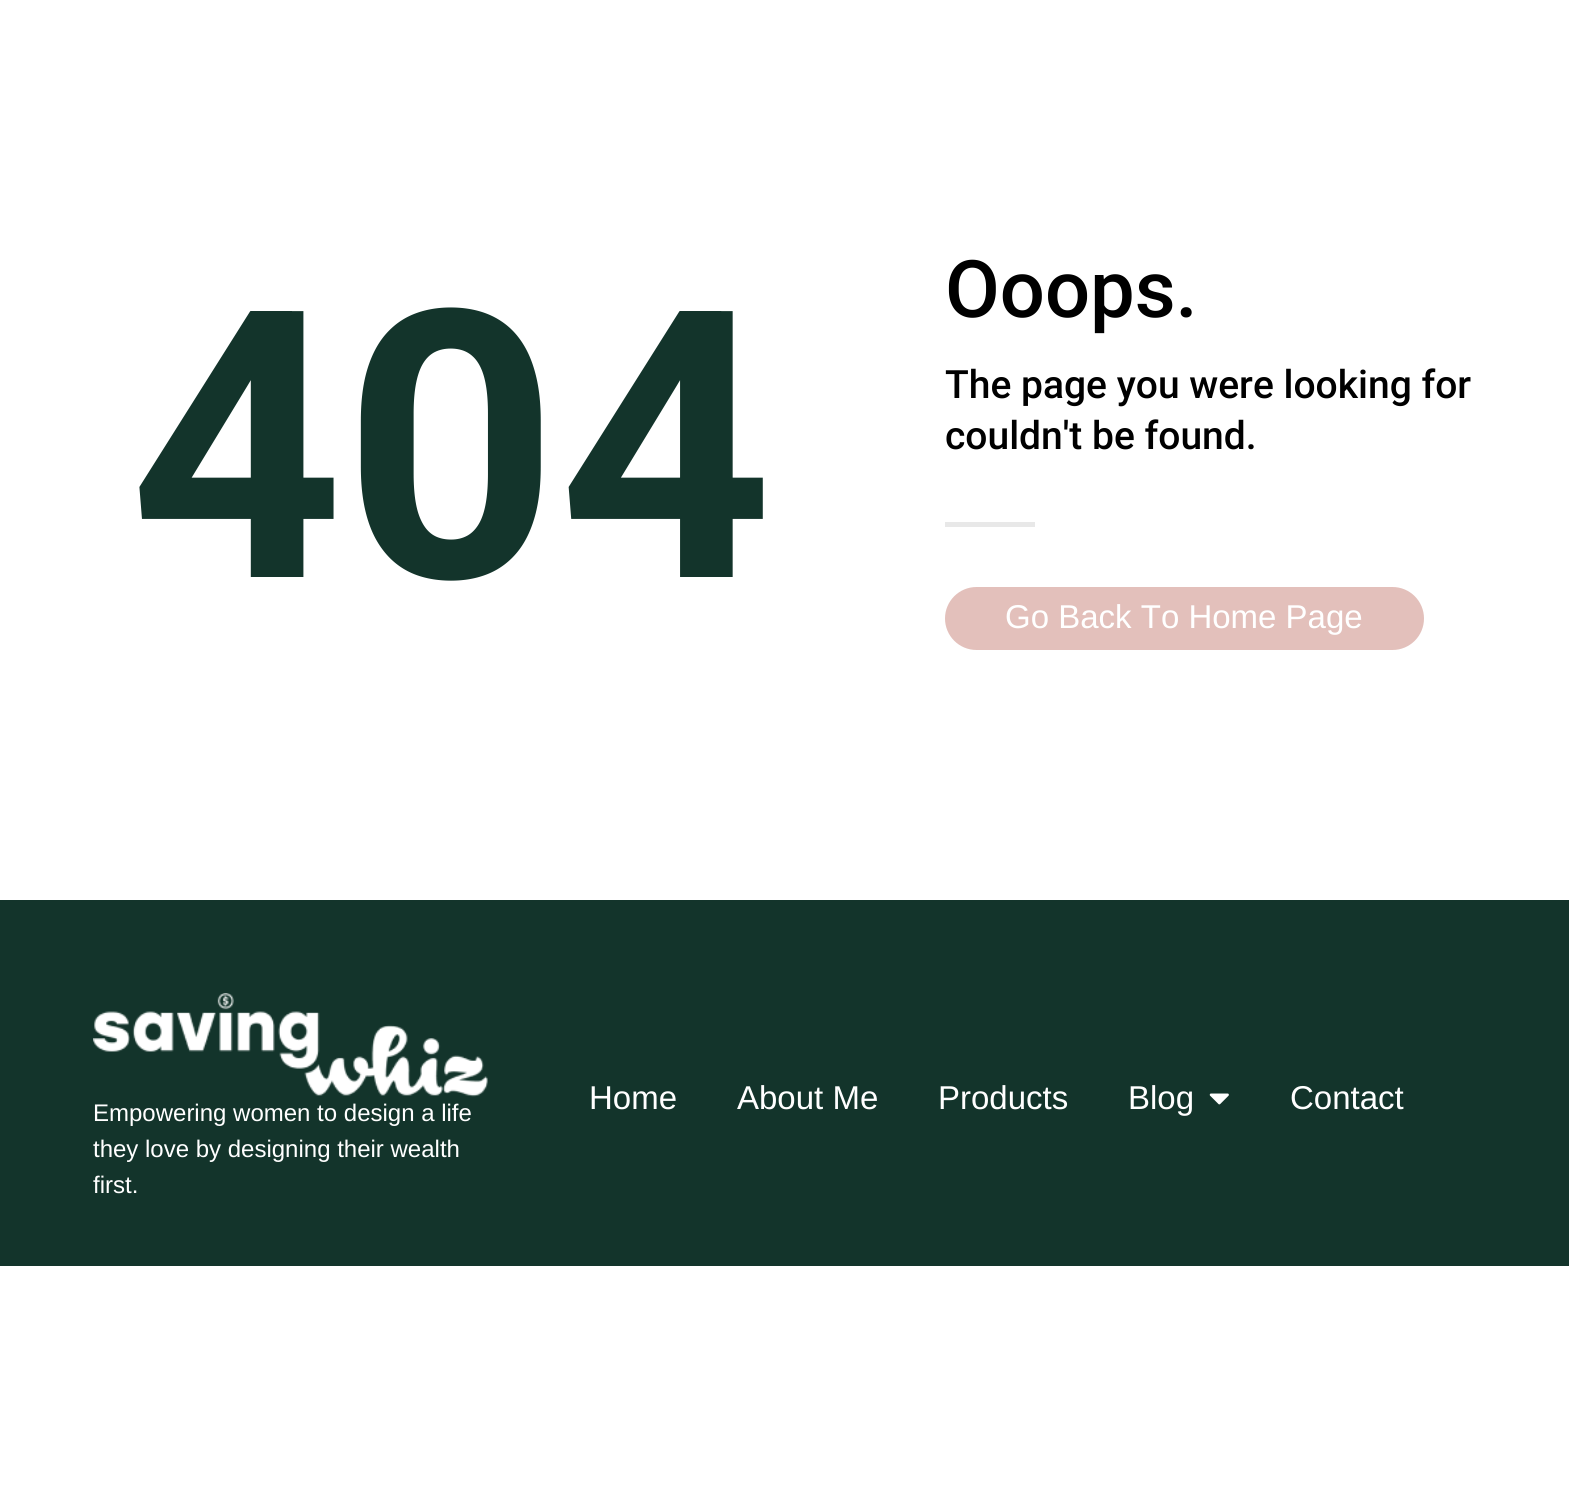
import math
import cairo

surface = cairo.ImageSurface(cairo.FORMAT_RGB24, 1569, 1498)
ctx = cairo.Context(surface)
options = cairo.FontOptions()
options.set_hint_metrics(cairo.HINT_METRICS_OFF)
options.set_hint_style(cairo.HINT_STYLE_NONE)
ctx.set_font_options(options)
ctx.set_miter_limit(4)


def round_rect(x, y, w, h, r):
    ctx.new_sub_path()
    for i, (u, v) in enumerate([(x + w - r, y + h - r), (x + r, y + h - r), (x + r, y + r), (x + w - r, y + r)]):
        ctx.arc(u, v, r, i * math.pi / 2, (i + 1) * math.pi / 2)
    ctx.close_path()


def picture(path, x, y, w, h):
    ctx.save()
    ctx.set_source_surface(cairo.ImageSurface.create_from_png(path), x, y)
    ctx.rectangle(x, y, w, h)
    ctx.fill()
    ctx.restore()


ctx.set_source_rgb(1, 1, 1)
ctx.paint()
ctx.select_font_face("Roboto", cairo.FONT_SLANT_NORMAL, cairo.FONT_WEIGHT_BOLD)
ctx.set_font_size(374)
ctx.set_source_rgb(0.075, 0.204, 0.169)
ctx.move_to(129, 577)
ctx.show_text("404")
ctx.select_font_face("Roboto Medium")
ctx.set_font_size(79.5)
ctx.set_source_rgb(0, 0, 0)
ctx.move_to(945, 317)
ctx.show_text("Ooops.")
ctx.set_font_size(39)
ctx.move_to(945, 398)
ctx.show_text("The page you were looking for")
ctx.move_to(945, 449)
ctx.show_text("couldn't be found.")
ctx.set_source_rgb(0.91, 0.91, 0.91)
ctx.rectangle(945, 522, 90, 5)
ctx.fill()
ctx.set_source_rgb(0.89, 0.753, 0.733)
round_rect(945, 587, 479, 63, 31.5)
ctx.fill()
ctx.select_font_face("Liberation Sans")
ctx.set_font_size(33)
ctx.set_source_rgb(1, 1, 1)
ctx.move_to(1005, 628)
ctx.show_text("Go Back To Home Page")
ctx.set_source_rgb(0.075, 0.204, 0.169)
ctx.rectangle(0, 900, 1569, 366)
ctx.fill()
picture("img1.png", 93, 993, 395, 104)
ctx.set_font_size(24)
ctx.set_source_rgb(1, 1, 1)
ctx.move_to(93, 1121)
ctx.show_text("Empowering women to design a life")
ctx.move_to(93, 1157)
ctx.show_text("they love by designing their wealth")
ctx.move_to(93, 1193)
ctx.show_text("first.")
ctx.set_font_size(33)
ctx.move_to(589, 1109)
ctx.show_text("Home")
ctx.move_to(737, 1109)
ctx.show_text("About Me")
ctx.move_to(938, 1109)
ctx.show_text("Products")
ctx.move_to(1128, 1109)
ctx.show_text("Blog")
picture("img2.png", 1209, 1093, 20, 12)
ctx.move_to(1290, 1109)
ctx.show_text("Contact")
surface.write_to_png("page.png")
